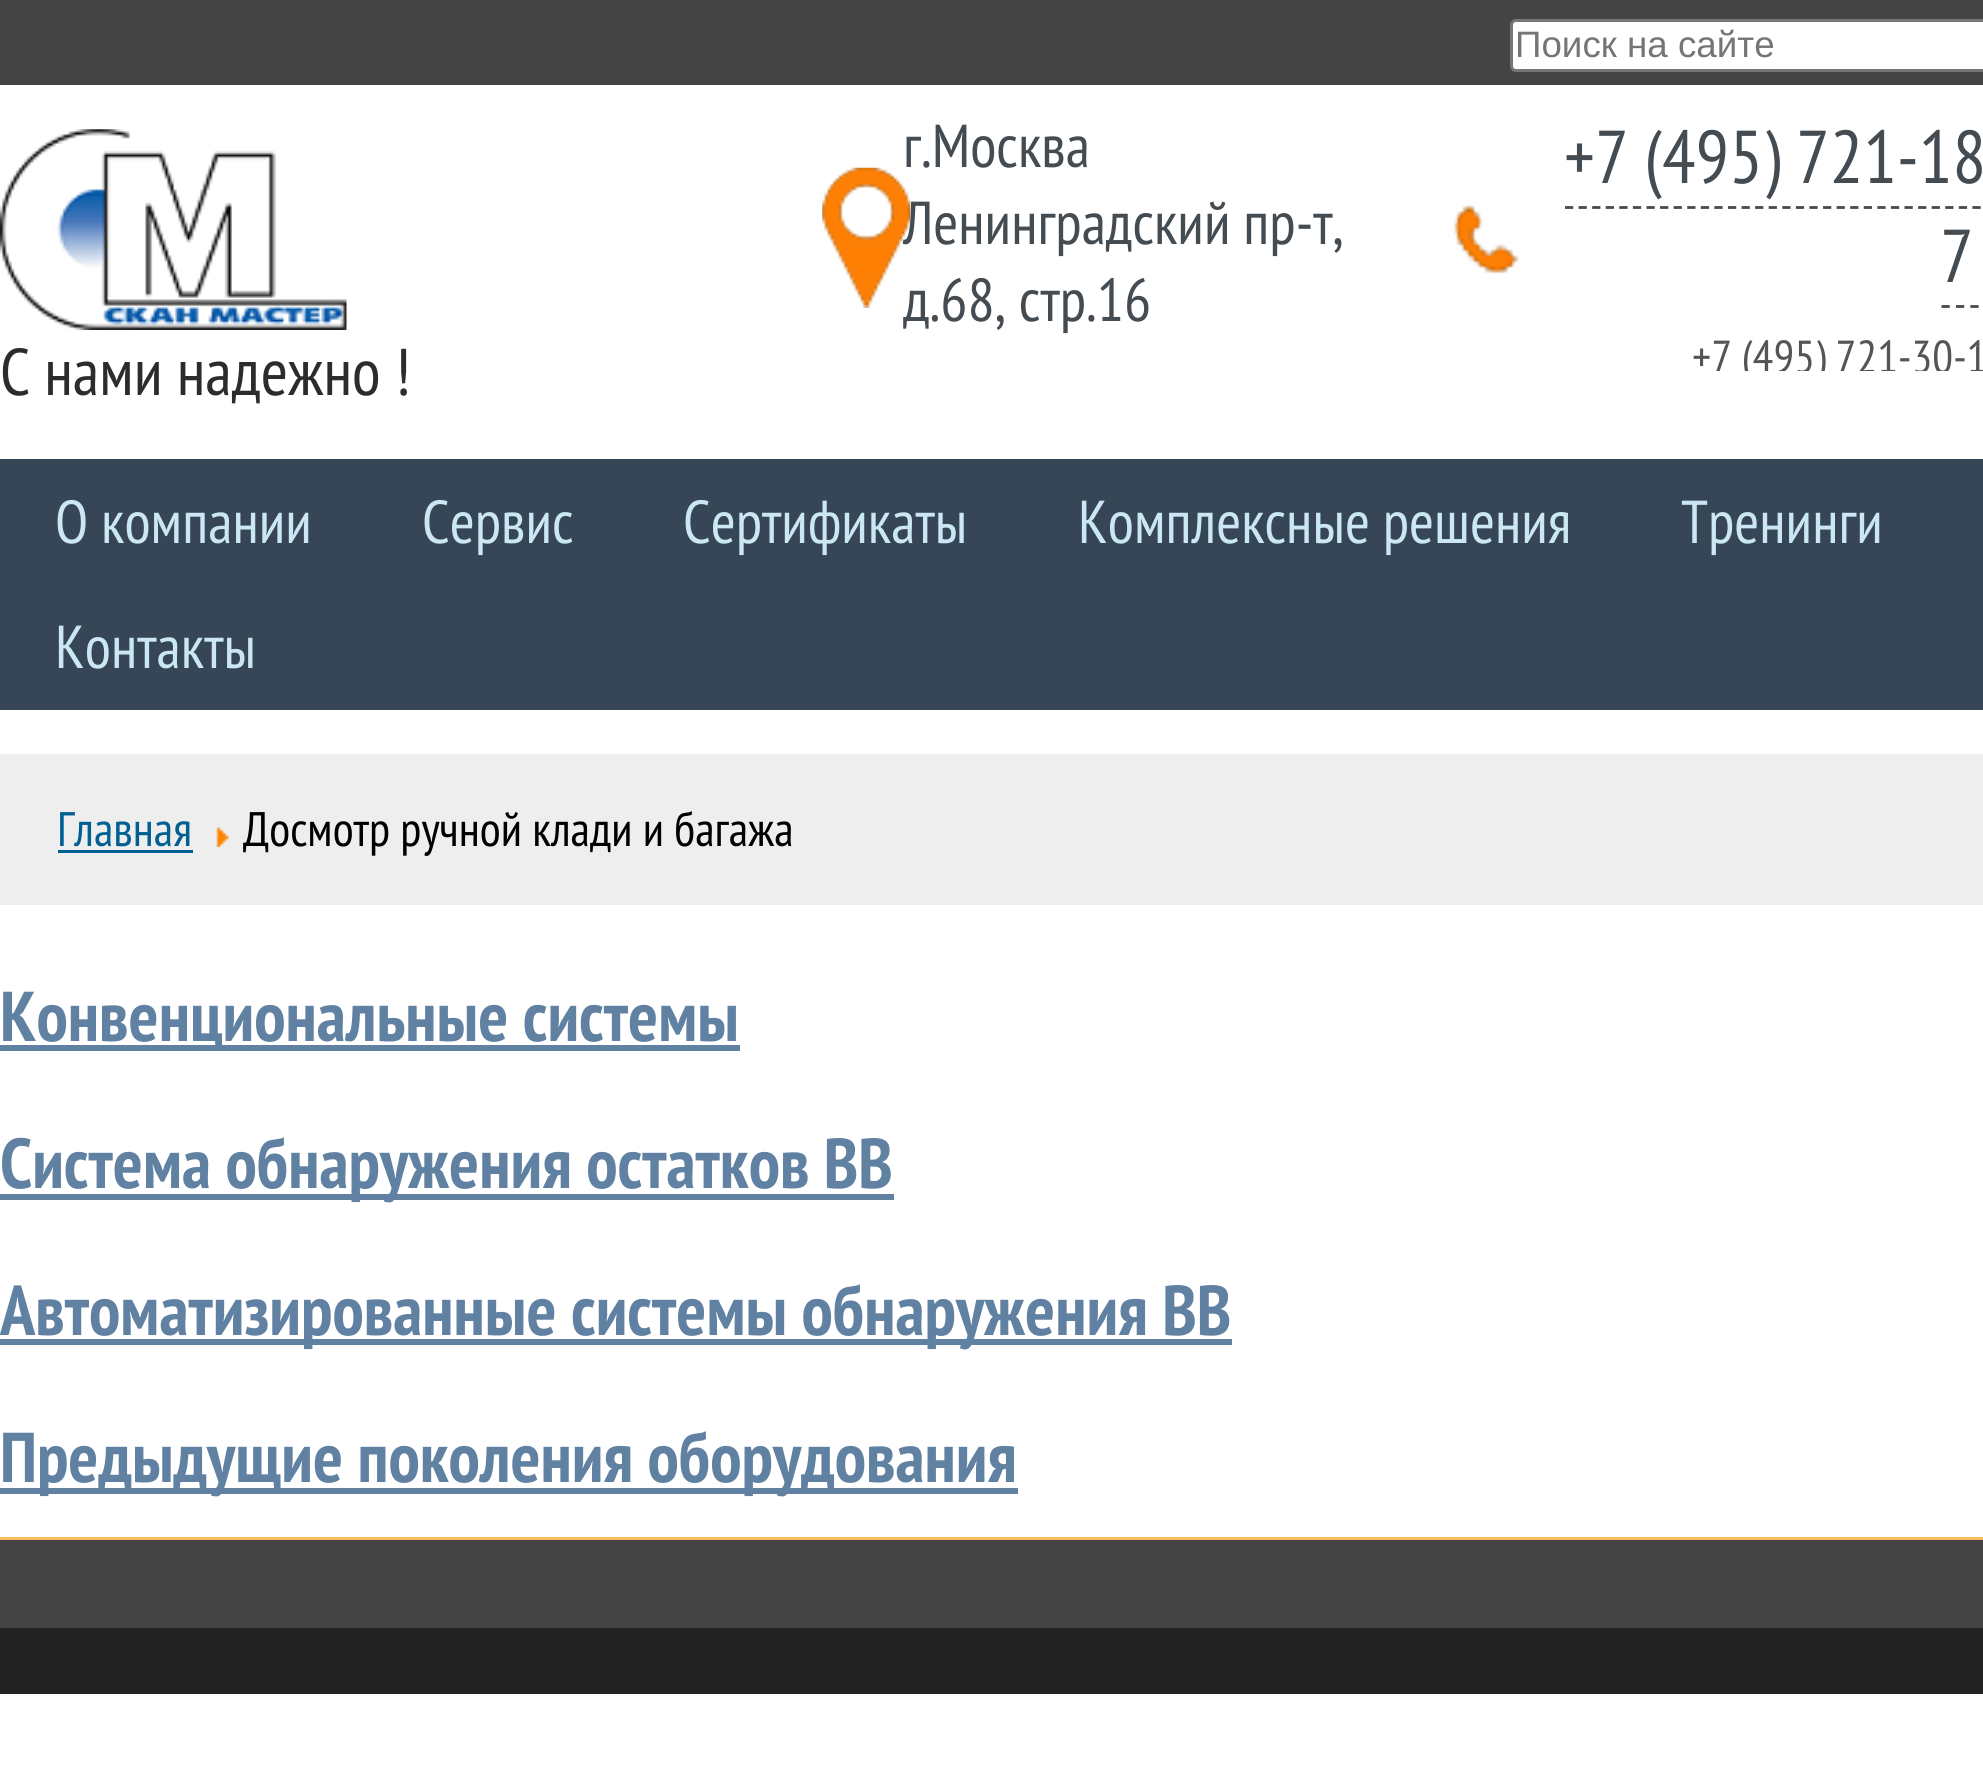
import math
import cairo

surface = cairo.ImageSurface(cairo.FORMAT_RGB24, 1983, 1766)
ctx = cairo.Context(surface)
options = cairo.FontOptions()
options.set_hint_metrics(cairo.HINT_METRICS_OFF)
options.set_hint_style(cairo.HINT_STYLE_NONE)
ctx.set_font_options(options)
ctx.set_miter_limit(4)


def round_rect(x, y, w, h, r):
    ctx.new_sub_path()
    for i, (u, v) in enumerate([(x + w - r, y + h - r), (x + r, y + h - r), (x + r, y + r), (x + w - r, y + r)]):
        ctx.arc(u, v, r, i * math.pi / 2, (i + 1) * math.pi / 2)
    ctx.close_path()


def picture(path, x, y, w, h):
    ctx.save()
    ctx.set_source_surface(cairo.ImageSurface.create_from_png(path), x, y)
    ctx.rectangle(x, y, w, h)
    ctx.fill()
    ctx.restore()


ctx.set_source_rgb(1, 1, 1)
ctx.paint()
ctx.set_source_rgb(0.267, 0.267, 0.267)
ctx.rectangle(0, 0, 1983, 85)
ctx.fill()
ctx.set_source_rgb(1, 1, 1)
round_rect(1511.5, 20.5, 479, 50, 4.5)
ctx.fill_preserve()
ctx.set_source_rgb(0.463, 0.463, 0.463)
ctx.set_line_width(3)
ctx.stroke()
ctx.select_font_face("Liberation Sans")
ctx.set_font_size(36.75)
ctx.set_source_rgb(0.459, 0.459, 0.459)
ctx.move_to(1515, 57)
ctx.show_text("Поиск на сайте")
picture("img1.png", 0, 129, 347, 201)
ctx.select_font_face("PT Sans Narrow")
ctx.set_font_size(66)
ctx.set_source_rgb(0.169, 0.173, 0.173)
ctx.move_to(0, 395)
ctx.show_text("С нами надежно !")
picture("img2.png", 822, 167, 89, 141)
ctx.set_font_size(60.5)
ctx.set_source_rgb(0.267, 0.294, 0.318)
ctx.move_to(903, 167)
ctx.show_text("г.Москва")
ctx.move_to(903, 244)
ctx.show_text("Ленинградский пр-т,")
ctx.move_to(903, 321)
ctx.show_text("д.68, стр.16")
picture("img3.png", 1452, 205, 67, 69)
ctx.set_font_size(74.75)
ctx.move_to(1564, 183)
ctx.show_text("+7 (495) 721-18")
ctx.new_path()
ctx.move_to(1565, 207.5)
ctx.line_to(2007.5, 207.5)
ctx.set_line_width(2.8)
ctx.set_dash([8.25, 5.33])
ctx.stroke()
ctx.move_to(1940, 282)
ctx.show_text("7")
ctx.new_path()
ctx.move_to(1941.5, 306.5)
ctx.line_to(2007.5, 306.5)
ctx.set_dash([8.25, 6.19])
ctx.stroke()
ctx.save()
ctx.rectangle(1425, 107, 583, 264)
ctx.clip()
ctx.set_font_size(46.25)
ctx.set_source_rgb(0.333, 0.333, 0.333)
ctx.move_to(1692, 373)
ctx.show_text("+7 (495) 721-30-1")
ctx.restore()
ctx.set_source_rgb(0.212, 0.275, 0.337)
ctx.rectangle(0, 459, 1983, 251)
ctx.fill()
ctx.set_font_size(60.5)
ctx.set_source_rgb(0.792, 0.906, 0.953)
ctx.move_to(55, 543)
ctx.show_text("О компании")
ctx.move_to(422, 543)
ctx.show_text("Сервис")
ctx.move_to(683, 543)
ctx.show_text("Сертификаты")
ctx.move_to(1078, 543)
ctx.show_text("Комплексные решения")
ctx.move_to(1681, 543)
ctx.show_text("Тренинги")
ctx.move_to(55, 668)
ctx.show_text("Контакты")
ctx.set_source_rgb(0.933, 0.933, 0.933)
ctx.rectangle(0, 754, 1983, 151)
ctx.fill()
ctx.set_font_size(48.4)
ctx.set_source_rgb(0.004, 0.376, 0.573)
ctx.move_to(57, 846)
ctx.show_text("Главная")
ctx.rectangle(58, 850, 135, 3)
ctx.fill()
picture("img4.png", 216, 827, 14, 20)
ctx.set_source_rgb(0, 0, 0)
ctx.move_to(243, 846)
ctx.show_text("Досмотр ручной клади и багажа")
ctx.set_source_rgb(0.376, 0.506, 0.635)
ctx.rectangle(0, 1045, 740, 6)
ctx.fill()
ctx.select_font_face("PT Sans Narrow", cairo.FONT_SLANT_NORMAL, cairo.FONT_WEIGHT_BOLD)
ctx.set_font_size(70.4)
ctx.move_to(0, 1041)
ctx.show_text("Конвенциональные системы")
ctx.rectangle(0, 1194, 894, 6)
ctx.fill()
ctx.move_to(0, 1188)
ctx.show_text("Система обнаружения остатков ВВ")
ctx.rectangle(0, 1339, 1232, 6)
ctx.fill()
ctx.move_to(0, 1335)
ctx.show_text("Автоматизированные системы обнаружения ВВ")
ctx.rectangle(0, 1488, 1018, 6)
ctx.fill()
ctx.move_to(0, 1482)
ctx.show_text("Предыдущие поколения оборудования")
ctx.set_source_rgb(0.267, 0.267, 0.267)
ctx.rectangle(0, 1540, 1983, 88)
ctx.fill()
ctx.set_source_rgb(0.992, 0.741, 0.345)
ctx.rectangle(0, 1537, 1983, 3)
ctx.fill()
ctx.set_source_rgb(0.133, 0.133, 0.133)
ctx.rectangle(0, 1628, 1983, 66)
ctx.fill()
surface.write_to_png("page.png")
